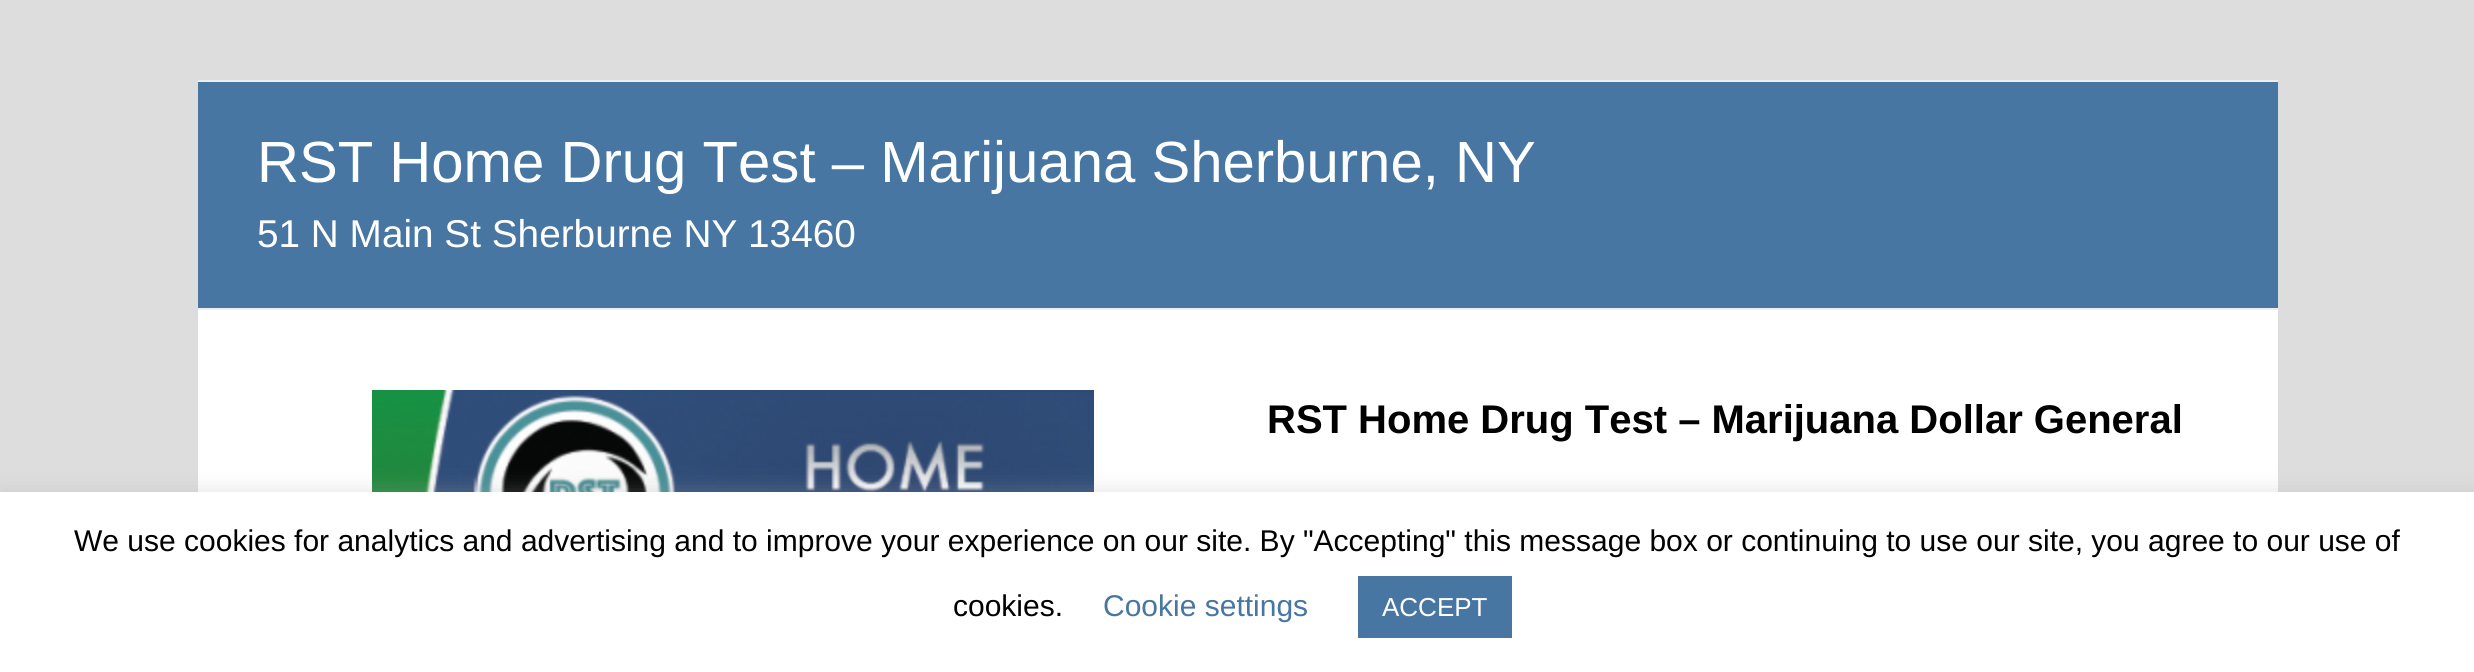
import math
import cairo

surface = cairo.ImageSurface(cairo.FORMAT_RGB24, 2474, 672)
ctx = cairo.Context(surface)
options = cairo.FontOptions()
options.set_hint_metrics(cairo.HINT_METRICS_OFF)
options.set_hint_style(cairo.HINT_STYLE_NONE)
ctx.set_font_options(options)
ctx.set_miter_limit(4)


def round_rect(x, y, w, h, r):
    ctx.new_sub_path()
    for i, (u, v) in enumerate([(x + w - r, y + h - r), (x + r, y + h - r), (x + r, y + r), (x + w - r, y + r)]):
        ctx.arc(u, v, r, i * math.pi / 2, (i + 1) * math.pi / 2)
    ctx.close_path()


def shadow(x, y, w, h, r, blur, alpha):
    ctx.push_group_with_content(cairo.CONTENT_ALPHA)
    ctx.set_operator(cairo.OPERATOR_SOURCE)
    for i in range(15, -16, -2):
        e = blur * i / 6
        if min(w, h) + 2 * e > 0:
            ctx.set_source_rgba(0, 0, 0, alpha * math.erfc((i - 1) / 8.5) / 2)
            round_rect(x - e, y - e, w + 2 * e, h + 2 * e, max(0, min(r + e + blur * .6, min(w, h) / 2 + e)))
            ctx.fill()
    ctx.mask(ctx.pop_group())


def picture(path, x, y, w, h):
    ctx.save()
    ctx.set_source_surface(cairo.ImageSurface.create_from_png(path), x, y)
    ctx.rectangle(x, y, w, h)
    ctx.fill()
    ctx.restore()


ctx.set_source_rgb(0.867, 0.867, 0.867)
ctx.paint()
ctx.set_source_rgb(1, 1, 1)
ctx.rectangle(198, 310, 2080, 182)
ctx.fill()
ctx.set_source_rgb(0.278, 0.463, 0.639)
ctx.rectangle(198, 82, 2080, 226)
ctx.fill()
ctx.set_source_rgb(0.933, 0.933, 0.933)
ctx.rectangle(198, 80, 2080, 2)
ctx.fill()
ctx.rectangle(198, 308, 2080, 2)
ctx.fill()
ctx.select_font_face("Liberation Sans")
ctx.set_font_size(58.1)
ctx.set_source_rgb(1, 1, 1)
ctx.move_to(257, 182)
ctx.show_text("RST Home Drug Test – Marijuana Sherburne, NY")
ctx.set_font_size(38.75)
ctx.move_to(257, 247)
ctx.show_text("51 N Main St Sherburne NY 13460")
picture("img1.png", 372, 390, 722, 102)
ctx.select_font_face("Liberation Sans", cairo.FONT_SLANT_NORMAL, cairo.FONT_WEIGHT_BOLD)
ctx.set_font_size(40)
ctx.set_source_rgb(0, 0, 0)
ctx.move_to(1267, 433)
ctx.show_text("RST Home Drug Test – Marijuana Dollar General")
ctx.set_source_rgb(0.675, 0.671, 0.671)
shadow(0, 490, 2474, 180, 0, 10, 0.3)
ctx.set_source_rgb(1, 1, 1)
ctx.rectangle(0, 492, 2474, 180)
ctx.fill()
ctx.select_font_face("Liberation Sans")
ctx.set_font_size(30)
ctx.set_source_rgb(0, 0, 0)
ctx.move_to(74, 551)
ctx.show_text("We use cookies for analytics and advertising and to improve your experience on our site. By \"Accepting\" this message box or continuing to use our site, you agree to our use of")
ctx.move_to(953, 616)
ctx.show_text("cookies.")
ctx.set_source_rgb(0.278, 0.463, 0.639)
ctx.move_to(1103, 616)
ctx.show_text("Cookie settings")
ctx.rectangle(1358, 576, 154, 62)
ctx.fill()
ctx.set_font_size(26)
ctx.set_source_rgb(1, 1, 1)
ctx.move_to(1382, 616)
ctx.show_text("ACCEPT")
surface.write_to_png("page.png")
